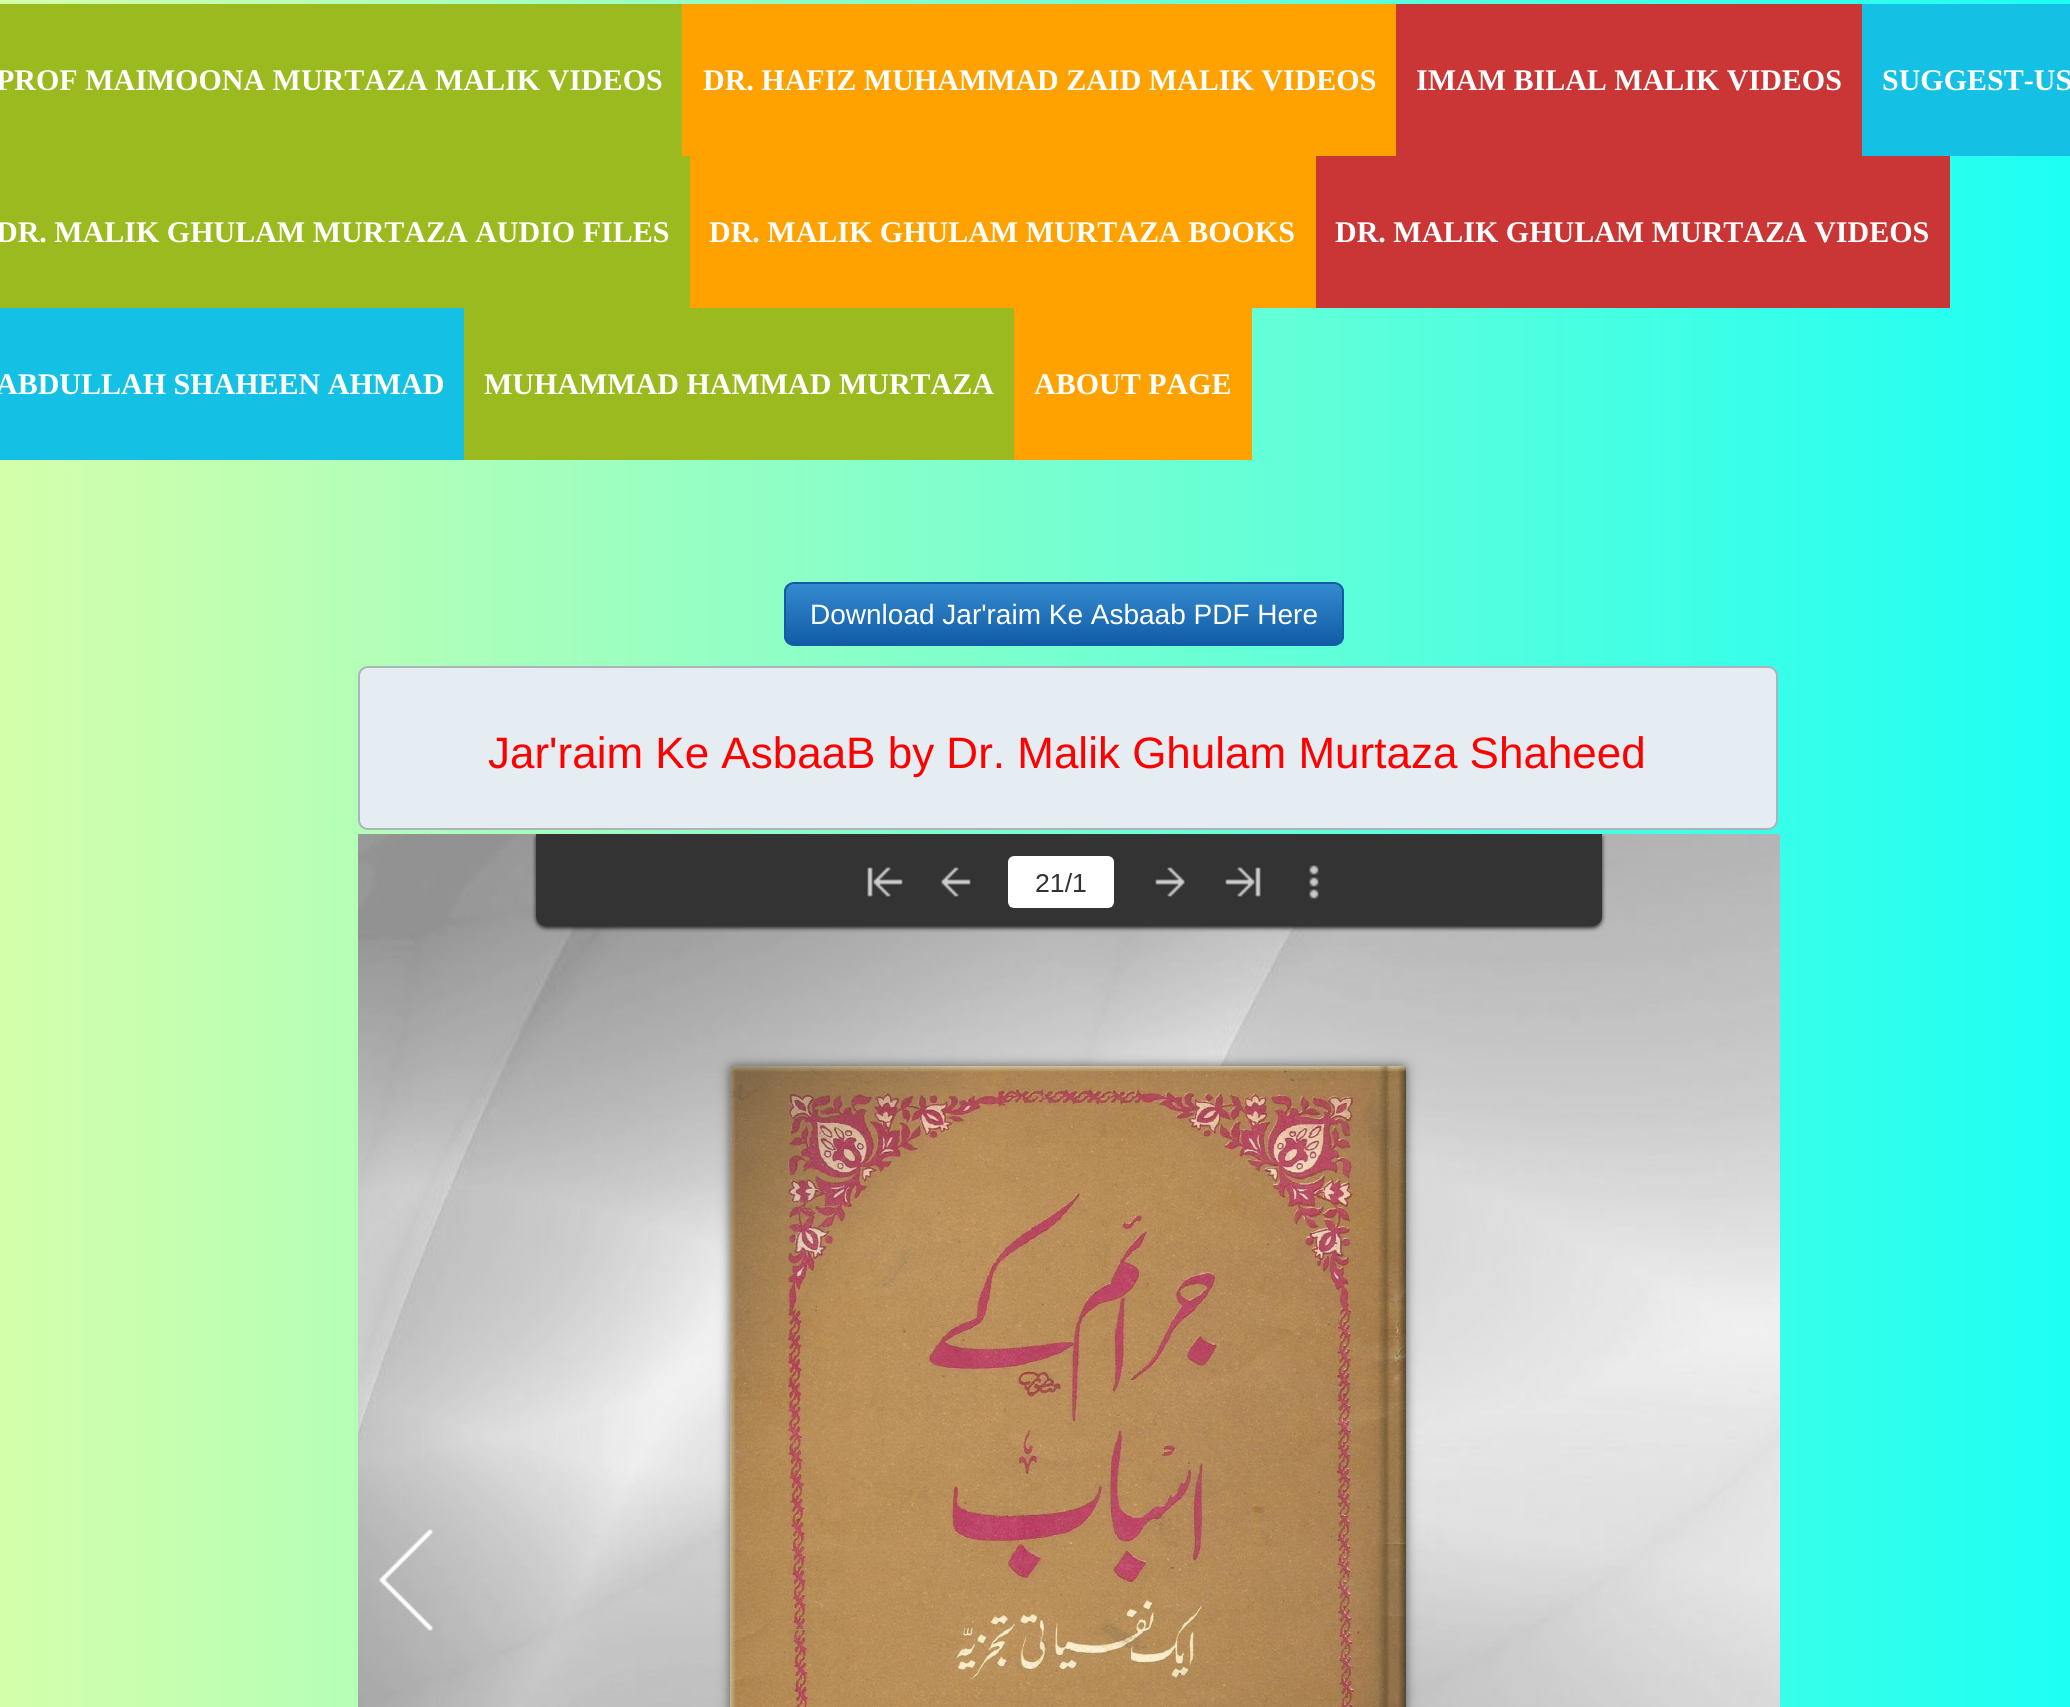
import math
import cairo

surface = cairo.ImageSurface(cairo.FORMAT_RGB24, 2070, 1707)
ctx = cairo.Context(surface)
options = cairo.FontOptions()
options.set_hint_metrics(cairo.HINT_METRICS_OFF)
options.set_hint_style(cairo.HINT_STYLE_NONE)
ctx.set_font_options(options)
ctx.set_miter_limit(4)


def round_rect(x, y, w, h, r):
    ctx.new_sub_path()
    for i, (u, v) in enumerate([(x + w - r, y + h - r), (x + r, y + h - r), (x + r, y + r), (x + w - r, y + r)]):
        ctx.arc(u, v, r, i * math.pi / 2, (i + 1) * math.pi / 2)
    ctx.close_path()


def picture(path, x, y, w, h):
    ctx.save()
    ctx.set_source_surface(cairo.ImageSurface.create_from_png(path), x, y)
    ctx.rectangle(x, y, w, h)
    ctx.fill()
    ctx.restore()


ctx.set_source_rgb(1, 1, 1)
ctx.paint()
gradient = cairo.LinearGradient(0, 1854, 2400, 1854)
gradient.add_color_stop_rgba(0, 0.831, 1, 0.667, 1)
gradient.add_color_stop_rgba(1, 0, 1, 1, 1)
ctx.set_source(gradient)
ctx.rectangle(0, 0, 2070, 1707)
ctx.fill()
ctx.set_source_rgb(0.608, 0.729, 0.122)
ctx.rectangle(0, 4, 682, 152)
ctx.fill()
ctx.select_font_face("Liberation Serif", cairo.FONT_SLANT_NORMAL, cairo.FONT_WEIGHT_BOLD)
ctx.set_font_size(30)
ctx.set_source_rgb(1, 1, 1)
ctx.move_to(-4, 90)
ctx.show_text("PROF MAIMOONA MURTAZA MALIK VIDEOS")
ctx.set_source_rgb(1, 0.635, 0)
ctx.rectangle(682, 4, 714, 152)
ctx.fill()
ctx.set_source_rgb(1, 1, 1)
ctx.move_to(703, 90)
ctx.show_text("DR. HAFIZ MUHAMMAD ZAID MALIK VIDEOS")
ctx.set_source_rgb(0.792, 0.208, 0.208)
ctx.rectangle(1396, 4, 466, 152)
ctx.fill()
ctx.set_source_rgb(1, 1, 1)
ctx.move_to(1416, 90)
ctx.show_text("IMAM BILAL MALIK VIDEOS")
ctx.set_source_rgb(0.082, 0.757, 0.898)
ctx.rectangle(1862, 4, 208, 152)
ctx.fill()
ctx.set_source_rgb(1, 1, 1)
ctx.move_to(1882, 90)
ctx.show_text("SUGGEST-US")
ctx.set_source_rgb(0.608, 0.729, 0.122)
ctx.rectangle(0, 156, 690, 152)
ctx.fill()
ctx.set_source_rgb(1, 1, 1)
ctx.move_to(-4, 242)
ctx.show_text("DR. MALIK GHULAM MURTAZA AUDIO FILES")
ctx.set_source_rgb(1, 0.635, 0)
ctx.rectangle(690, 156, 626, 152)
ctx.fill()
ctx.set_source_rgb(1, 1, 1)
ctx.move_to(709, 242)
ctx.show_text("DR. MALIK GHULAM MURTAZA BOOKS")
ctx.set_source_rgb(0.792, 0.208, 0.208)
ctx.rectangle(1316, 156, 634, 152)
ctx.fill()
ctx.set_source_rgb(1, 1, 1)
ctx.move_to(1335, 242)
ctx.show_text("DR. MALIK GHULAM MURTAZA VIDEOS")
ctx.set_source_rgb(0.082, 0.757, 0.898)
ctx.rectangle(0, 308, 464, 152)
ctx.fill()
ctx.set_source_rgb(1, 1, 1)
ctx.move_to(-4, 394)
ctx.show_text("ABDULLAH SHAHEEN AHMAD")
ctx.set_source_rgb(0.608, 0.729, 0.122)
ctx.rectangle(464, 308, 550, 152)
ctx.fill()
ctx.set_source_rgb(1, 1, 1)
ctx.move_to(484, 394)
ctx.show_text("MUHAMMAD HAMMAD MURTAZA")
ctx.set_source_rgb(1, 0.635, 0)
ctx.rectangle(1014, 308, 238, 152)
ctx.fill()
ctx.set_source_rgb(1, 1, 1)
ctx.move_to(1034, 394)
ctx.show_text("ABOUT PAGE")
ctx.save()
round_rect(784, 582, 560, 64, 10)
ctx.clip()
gradient = cairo.LinearGradient(1064, 584, 1064, 644)
gradient.add_color_stop_rgba(0, 0.204, 0.545, 0.812, 1)
gradient.add_color_stop_rgba(1, 0.071, 0.361, 0.651, 1)
ctx.set_source(gradient)
ctx.rectangle(784, 584, 560, 60)
ctx.fill()
ctx.restore()
round_rect(785, 583, 558, 62, 9)
ctx.set_source_rgb(0.071, 0.361, 0.651)
ctx.stroke()
ctx.select_font_face("Liberation Sans")
ctx.set_font_size(28)
ctx.set_source_rgb(1, 1, 1)
ctx.move_to(810, 624)
ctx.show_text("Download Jar'raim Ke Asbaab PDF Here")
ctx.set_source_rgb(0.898, 0.929, 0.949)
round_rect(359, 667, 1418, 162, 9)
ctx.fill_preserve()
ctx.set_source_rgb(0.663, 0.706, 0.733)
ctx.stroke()
ctx.set_font_size(44)
ctx.set_source_rgb(1, 0, 0)
ctx.move_to(488, 768)
ctx.show_text("Jar'raim Ke AsbaaB by Dr. Malik Ghulam Murtaza Shaheed")
picture("img1.png", 358, 834, 1422, 873)
surface.write_to_png("page.png")
